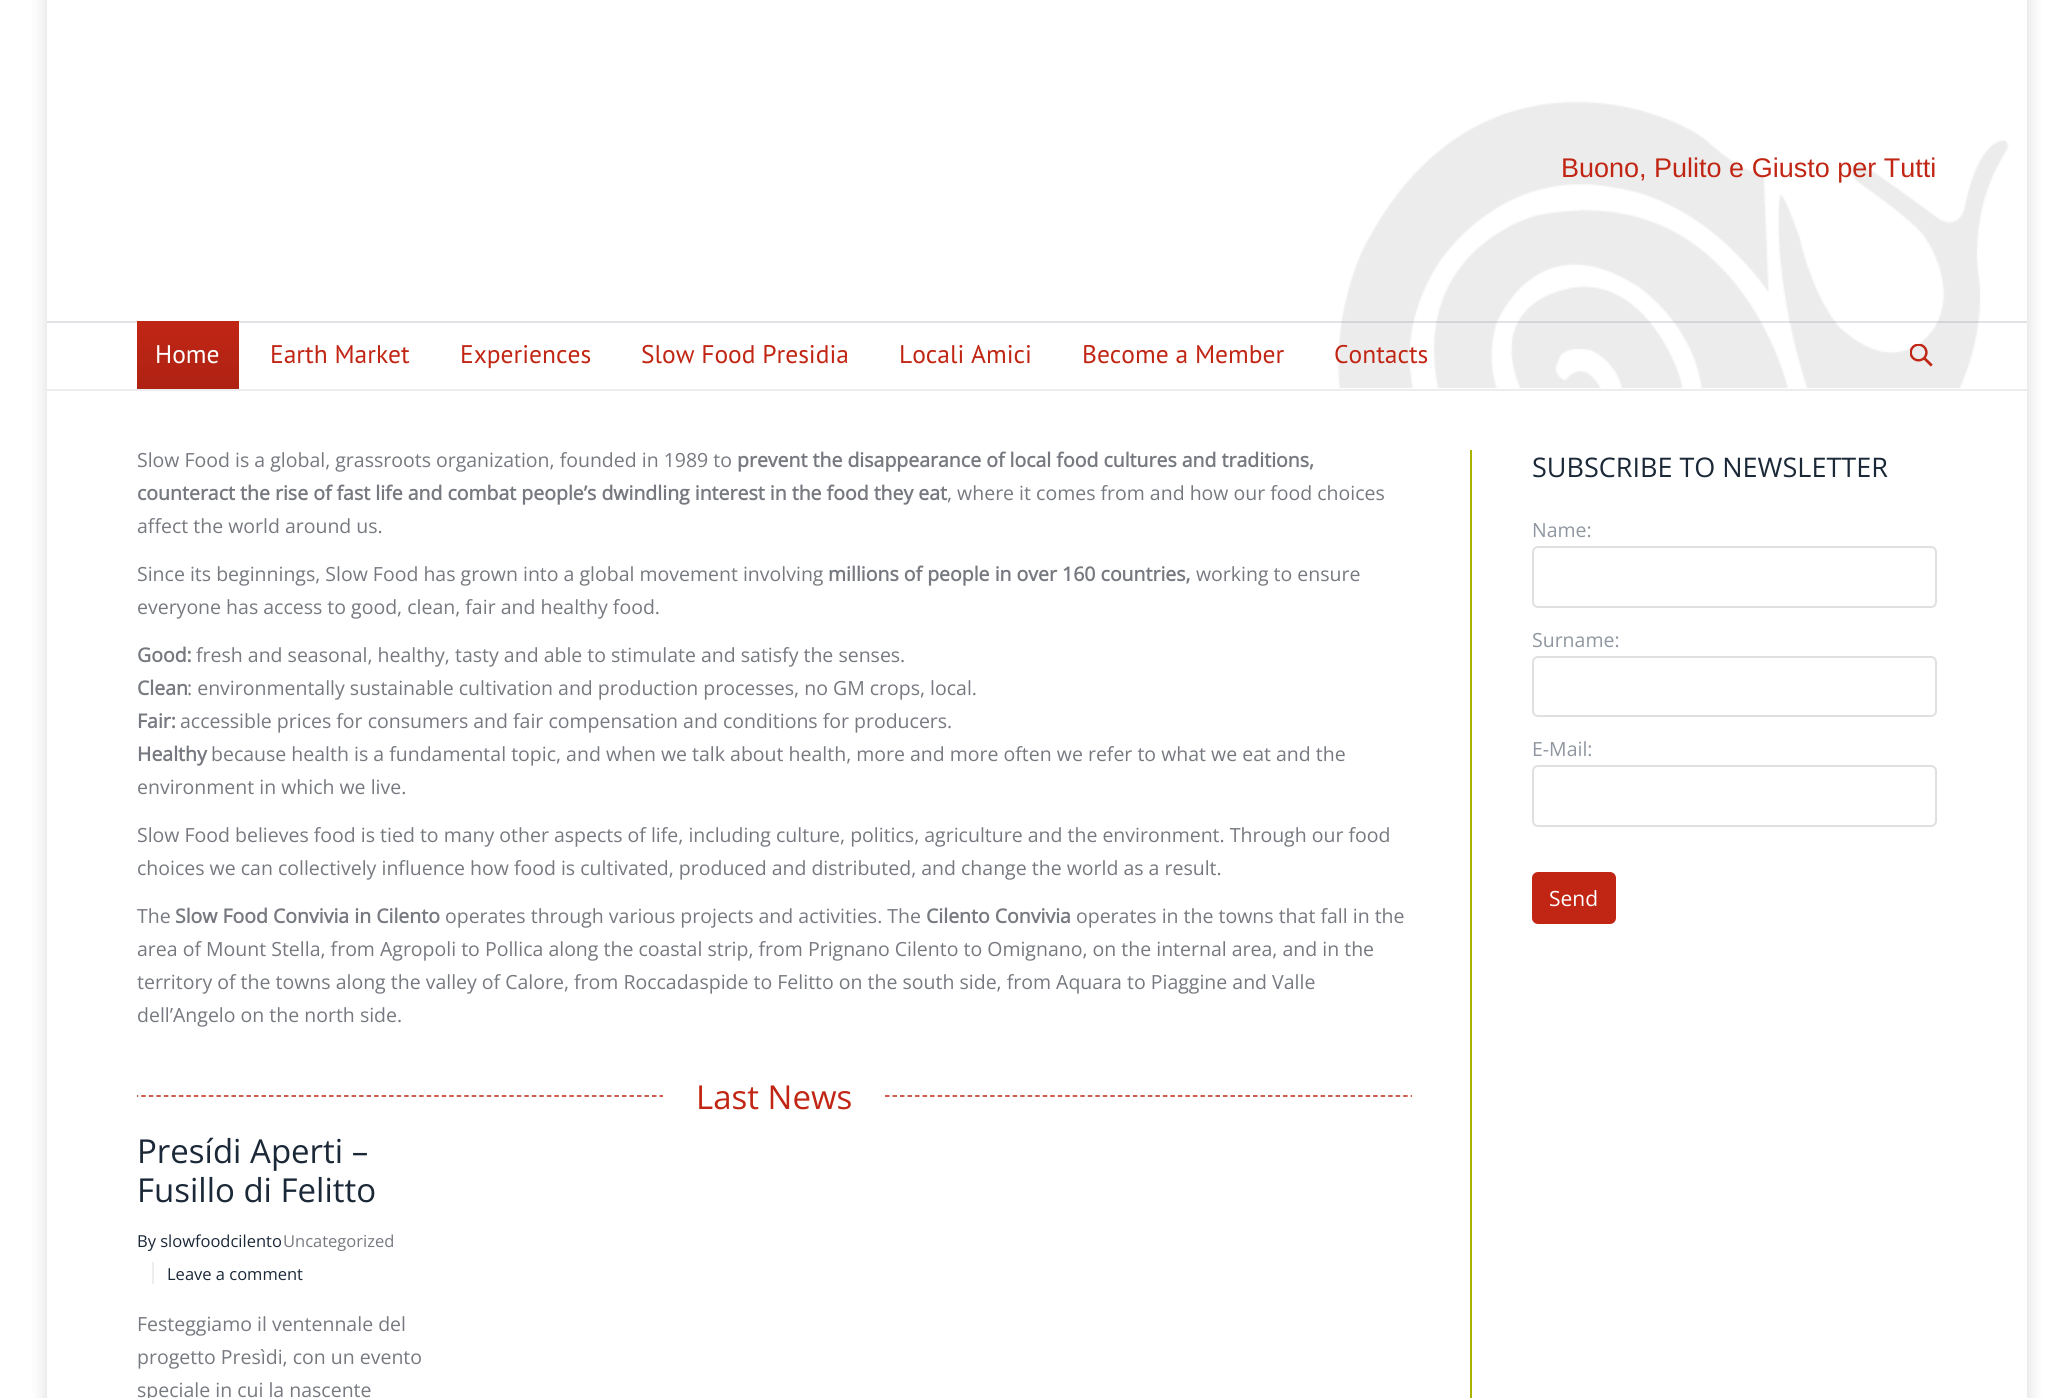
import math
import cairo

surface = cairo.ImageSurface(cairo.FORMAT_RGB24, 2072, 1398)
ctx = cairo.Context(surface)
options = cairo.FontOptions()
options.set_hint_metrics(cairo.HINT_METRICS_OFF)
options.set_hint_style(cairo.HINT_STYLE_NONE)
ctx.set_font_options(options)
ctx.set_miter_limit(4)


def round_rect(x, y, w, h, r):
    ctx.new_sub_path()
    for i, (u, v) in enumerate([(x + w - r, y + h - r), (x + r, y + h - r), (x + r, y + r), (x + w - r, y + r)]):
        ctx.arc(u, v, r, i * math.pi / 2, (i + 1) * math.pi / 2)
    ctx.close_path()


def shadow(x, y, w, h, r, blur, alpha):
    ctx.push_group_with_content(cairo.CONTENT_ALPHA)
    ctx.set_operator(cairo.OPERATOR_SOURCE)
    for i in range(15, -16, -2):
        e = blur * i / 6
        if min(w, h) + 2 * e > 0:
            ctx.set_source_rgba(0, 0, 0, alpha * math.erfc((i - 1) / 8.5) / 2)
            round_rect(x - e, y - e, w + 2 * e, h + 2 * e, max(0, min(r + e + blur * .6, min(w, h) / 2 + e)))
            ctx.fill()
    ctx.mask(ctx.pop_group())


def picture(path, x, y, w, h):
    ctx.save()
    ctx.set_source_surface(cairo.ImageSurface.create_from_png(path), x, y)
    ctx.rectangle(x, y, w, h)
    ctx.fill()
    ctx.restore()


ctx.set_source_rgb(1, 1, 1)
ctx.paint()
ctx.set_source_rgb(0, 0, 0)
shadow(47, -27, 1980, 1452, 0, 9, 0.15)
ctx.set_source_rgb(1, 1, 1)
ctx.rectangle(47, 0, 1980, 1398)
ctx.fill()
picture("img1.png", 1338, 101, 671, 287)
ctx.set_source_rgb(0.922, 0.929, 0.937)
ctx.rectangle(47, 389, 1980, 2)
ctx.fill()
ctx.select_font_face("Liberation Sans")
ctx.set_font_size(27)
ctx.set_source_rgb(0.757, 0.149, 0.082)
ctx.move_to(1561, 177)
ctx.show_text("Buono, Pulito e Giusto per Tutti")
ctx.set_source_rgba(0.435, 0.482, 0.545, 0.21)
ctx.rectangle(47, 321, 1980, 2)
ctx.fill()
gradient = cairo.LinearGradient(188, 321, 188, 389)
gradient.add_color_stop_rgba(0, 0.757, 0.149, 0.082, 1)
gradient.add_color_stop_rgba(1, 0.682, 0.133, 0.075, 1)
ctx.set_source(gradient)
ctx.rectangle(137, 321, 102, 68)
ctx.fill()
ctx.select_font_face("PT Sans")
ctx.set_font_size(25.5)
ctx.set_source_rgb(1, 1, 1)
ctx.move_to(155, 363)
ctx.show_text("Home")
ctx.set_source_rgb(0.757, 0.149, 0.082)
ctx.move_to(270, 363)
ctx.show_text("Earth Market")
ctx.move_to(460, 363)
ctx.show_text("Experiences")
ctx.move_to(641, 363)
ctx.show_text("Slow Food Presidia")
ctx.move_to(899, 363)
ctx.show_text("Locali Amici")
ctx.move_to(1082, 363)
ctx.show_text("Become a Member")
ctx.move_to(1334, 363)
ctx.show_text("Contacts")
picture("img2.png", 1910, 344, 23, 23)
ctx.select_font_face("Open Sans")
ctx.set_font_size(19.5)
ctx.set_source_rgb(0.463, 0.475, 0.498)
ctx.move_to(137, 467)
ctx.show_text("Slow Food is a global, grassroots organization, founded in 1989 to")
ctx.select_font_face("Open Sans", cairo.FONT_SLANT_NORMAL, cairo.FONT_WEIGHT_BOLD)
ctx.move_to(737, 467)
ctx.show_text("prevent the disappearance of local food cultures and traditions,")
ctx.move_to(137, 500)
ctx.show_text("counteract the rise of fast life and combat people’s dwindling interest in the food they eat")
ctx.select_font_face("Open Sans")
ctx.move_to(947, 500)
ctx.show_text(", where it comes from and how our food choices")
ctx.move_to(137, 533)
ctx.show_text("affect the world around us.")
ctx.move_to(137, 581)
ctx.show_text("Since its beginnings, Slow Food has grown into a global movement involving")
ctx.select_font_face("Open Sans", cairo.FONT_SLANT_NORMAL, cairo.FONT_WEIGHT_BOLD)
ctx.move_to(828, 581)
ctx.show_text("millions of people in over 160 countries,")
ctx.select_font_face("Open Sans")
ctx.move_to(1196, 581)
ctx.show_text("working to ensure")
ctx.move_to(137, 614)
ctx.show_text("everyone has access to good, clean, fair and healthy food.")
ctx.select_font_face("Open Sans", cairo.FONT_SLANT_NORMAL, cairo.FONT_WEIGHT_BOLD)
ctx.move_to(137, 662)
ctx.show_text("Good:")
ctx.select_font_face("Open Sans")
ctx.move_to(196, 662)
ctx.show_text("fresh and seasonal, healthy, tasty and able to stimulate and satisfy the senses.")
ctx.select_font_face("Open Sans", cairo.FONT_SLANT_NORMAL, cairo.FONT_WEIGHT_BOLD)
ctx.move_to(137, 695)
ctx.show_text("Clean")
ctx.select_font_face("Open Sans")
ctx.move_to(187, 695)
ctx.show_text(": environmentally sustainable cultivation and production processes, no GM crops, local.")
ctx.select_font_face("Open Sans", cairo.FONT_SLANT_NORMAL, cairo.FONT_WEIGHT_BOLD)
ctx.move_to(137, 728)
ctx.show_text("Fair:")
ctx.select_font_face("Open Sans")
ctx.move_to(180, 728)
ctx.show_text("accessible prices for consumers and fair compensation and conditions for producers.")
ctx.select_font_face("Open Sans", cairo.FONT_SLANT_NORMAL, cairo.FONT_WEIGHT_BOLD)
ctx.move_to(137, 761)
ctx.show_text("Healthy")
ctx.select_font_face("Open Sans")
ctx.move_to(211, 761)
ctx.show_text("because health is a fundamental topic, and when we talk about health, more and more often we refer to what we eat and the")
ctx.move_to(137, 794)
ctx.show_text("environment in which we live.")
ctx.move_to(137, 842)
ctx.show_text("Slow Food believes food is tied to many other aspects of life, including culture, politics, agriculture and the environment. Through our food")
ctx.move_to(137, 875)
ctx.show_text("choices we can collectively influence how food is cultivated, produced and distributed, and change the world as a result.")
ctx.move_to(137, 923)
ctx.show_text("The")
ctx.select_font_face("Open Sans", cairo.FONT_SLANT_NORMAL, cairo.FONT_WEIGHT_BOLD)
ctx.move_to(175, 923)
ctx.show_text("Slow Food Convivia in Cilento")
ctx.select_font_face("Open Sans")
ctx.move_to(445, 923)
ctx.show_text("operates through various projects and activities. The")
ctx.select_font_face("Open Sans", cairo.FONT_SLANT_NORMAL, cairo.FONT_WEIGHT_BOLD)
ctx.move_to(926, 923)
ctx.show_text("Cilento Convivia")
ctx.select_font_face("Open Sans")
ctx.move_to(1076, 923)
ctx.show_text("operates in the towns that fall in the")
ctx.move_to(137, 956)
ctx.show_text("area of Mount Stella, from Agropoli to Pollica along the coastal strip, from Prignano Cilento to Omignano, on the internal area, and in the")
ctx.move_to(137, 989)
ctx.show_text("territory of the towns along the valley of Calore, from Roccadaspide to Felitto on the south side, from Aquara to Piaggine and Valle")
ctx.move_to(137, 1022)
ctx.show_text("dell’Angelo on the north side.")
ctx.save()
ctx.rectangle(137, 1076, 1275, 39)
ctx.clip()
ctx.new_path()
ctx.move_to(-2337, 1096)
ctx.line_to(663, 1096)
ctx.set_source_rgb(0.757, 0.149, 0.082)
ctx.set_line_width(1.5)
ctx.set_dash([4.5, 3.01])
ctx.stroke()
ctx.restore()
ctx.set_font_size(33)
ctx.set_source_rgb(0.757, 0.149, 0.082)
ctx.move_to(696, 1109)
ctx.show_text("Last News")
ctx.save()
ctx.rectangle(137, 1076, 1275, 39)
ctx.clip()
ctx.new_path()
ctx.move_to(885, 1096)
ctx.line_to(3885, 1096)
ctx.set_line_width(1.5)
ctx.set_dash([4.5, 3.01])
ctx.stroke()
ctx.restore()
ctx.set_source_rgb(0.667, 0.702, 0)
ctx.rectangle(1470, 450, 2, 948)
ctx.fill()
ctx.set_source_rgb(0.106, 0.157, 0.22)
ctx.move_to(137, 1163)
ctx.show_text("Presídi Aperti –")
ctx.move_to(137, 1202)
ctx.show_text("Fusillo di Felitto")
ctx.set_font_size(16.5)
ctx.move_to(137, 1247)
ctx.show_text("By slowfoodcilento")
ctx.set_source_rgb(0.463, 0.475, 0.498)
ctx.move_to(283, 1247)
ctx.show_text("Uncategorized")
ctx.set_source_rgb(0.922, 0.929, 0.937)
ctx.rectangle(152, 1262, 2, 22)
ctx.fill()
ctx.set_source_rgb(0.106, 0.157, 0.22)
ctx.move_to(167, 1280)
ctx.show_text("Leave a comment")
ctx.set_font_size(19.5)
ctx.set_source_rgb(0.463, 0.475, 0.498)
ctx.move_to(137, 1331)
ctx.show_text("Festeggiamo il ventennale del")
ctx.move_to(137, 1364)
ctx.show_text("progetto Presìdi, con un evento")
ctx.move_to(137, 1397)
ctx.show_text("speciale in cui la nascente")
ctx.set_font_size(27)
ctx.set_source_rgb(0.106, 0.157, 0.22)
ctx.move_to(1532, 477)
ctx.show_text("SUBSCRIBE TO NEWSLETTER")
ctx.set_font_size(19.5)
ctx.set_source_rgb(0.561, 0.588, 0.624)
ctx.move_to(1532, 537)
ctx.show_text("Name:")
round_rect(1533, 547, 403, 60, 5)
ctx.set_source_rgb(0.878, 0.878, 0.878)
ctx.stroke()
ctx.set_source_rgb(0.561, 0.588, 0.624)
ctx.move_to(1532, 647)
ctx.show_text("Surname:")
round_rect(1533, 657, 403, 59, 5)
ctx.set_source_rgb(0.878, 0.878, 0.878)
ctx.stroke()
ctx.set_source_rgb(0.561, 0.588, 0.624)
ctx.move_to(1532, 756)
ctx.show_text("E-Mail:")
round_rect(1533, 766, 403, 60, 5)
ctx.set_source_rgb(0.878, 0.878, 0.878)
ctx.stroke()
ctx.set_source_rgb(0.757, 0.149, 0.082)
round_rect(1532, 872, 84, 52, 6)
ctx.fill()
ctx.set_font_size(21)
ctx.set_source_rgb(1, 1, 1)
ctx.move_to(1549, 906)
ctx.show_text("Send")
surface.write_to_png("page.png")
